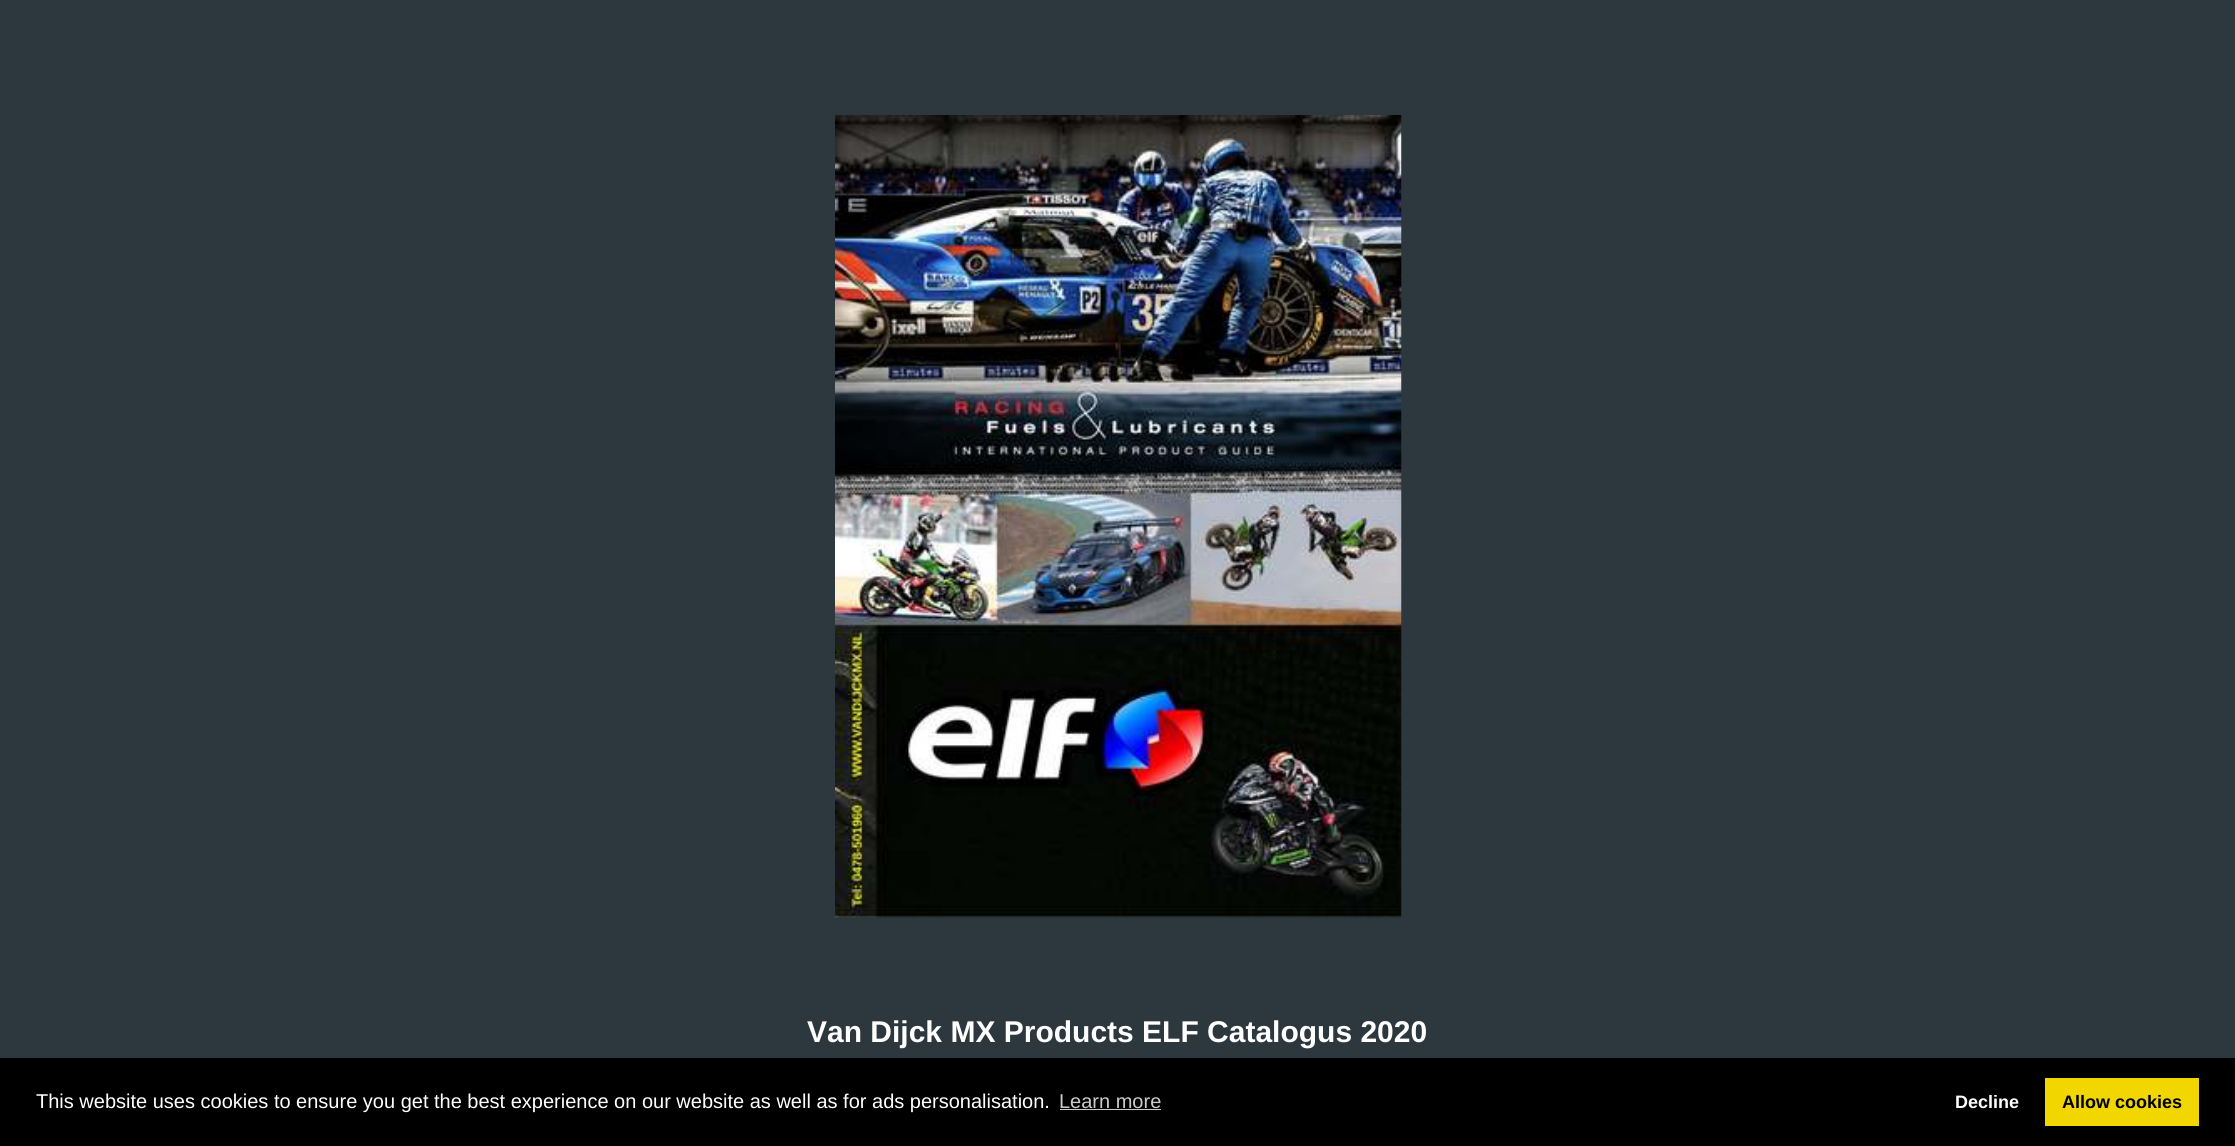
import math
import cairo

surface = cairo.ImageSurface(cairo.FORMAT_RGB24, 2235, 1146)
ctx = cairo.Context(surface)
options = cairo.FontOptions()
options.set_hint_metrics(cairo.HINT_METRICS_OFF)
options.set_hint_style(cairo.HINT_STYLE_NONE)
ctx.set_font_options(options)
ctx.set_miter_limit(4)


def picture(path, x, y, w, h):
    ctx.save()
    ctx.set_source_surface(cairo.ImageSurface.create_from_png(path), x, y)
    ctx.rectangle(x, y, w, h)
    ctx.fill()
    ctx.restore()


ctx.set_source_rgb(0.176, 0.216, 0.243)
ctx.paint()
picture("img1.png", 835, 115, 567, 803)
ctx.select_font_face("Liberation Sans", cairo.FONT_SLANT_NORMAL, cairo.FONT_WEIGHT_BOLD)
ctx.set_font_size(30)
ctx.set_source_rgb(1, 1, 1)
ctx.move_to(807, 1042)
ctx.show_text("Van Dijck MX Products ELF Catalogus 2020")
ctx.set_source_rgb(0, 0, 0)
ctx.rectangle(0, 1058, 2235, 88)
ctx.fill()
ctx.select_font_face("Liberation Sans")
ctx.set_font_size(20)
ctx.set_source_rgb(1, 1, 1)
ctx.move_to(36, 1108)
ctx.show_text("This website uses cookies to ensure you get the best experience on our website as well as for ads personalisation.")
ctx.set_source_rgb(0.8, 0.8, 0.8)
ctx.move_to(1059, 1108)
ctx.show_text("Learn more")
ctx.rectangle(1060, 1109, 101, 1)
ctx.fill()
ctx.select_font_face("Liberation Sans", cairo.FONT_SLANT_NORMAL, cairo.FONT_WEIGHT_BOLD)
ctx.set_font_size(18)
ctx.set_source_rgb(1, 1, 1)
ctx.move_to(1955, 1108)
ctx.show_text("Decline")
ctx.set_source_rgb(0.945, 0.839, 0)
ctx.rectangle(2045, 1078, 154, 48)
ctx.fill()
ctx.set_source_rgb(0, 0, 0)
ctx.move_to(2062, 1108)
ctx.show_text("Allow cookies")
surface.write_to_png("page.png")
